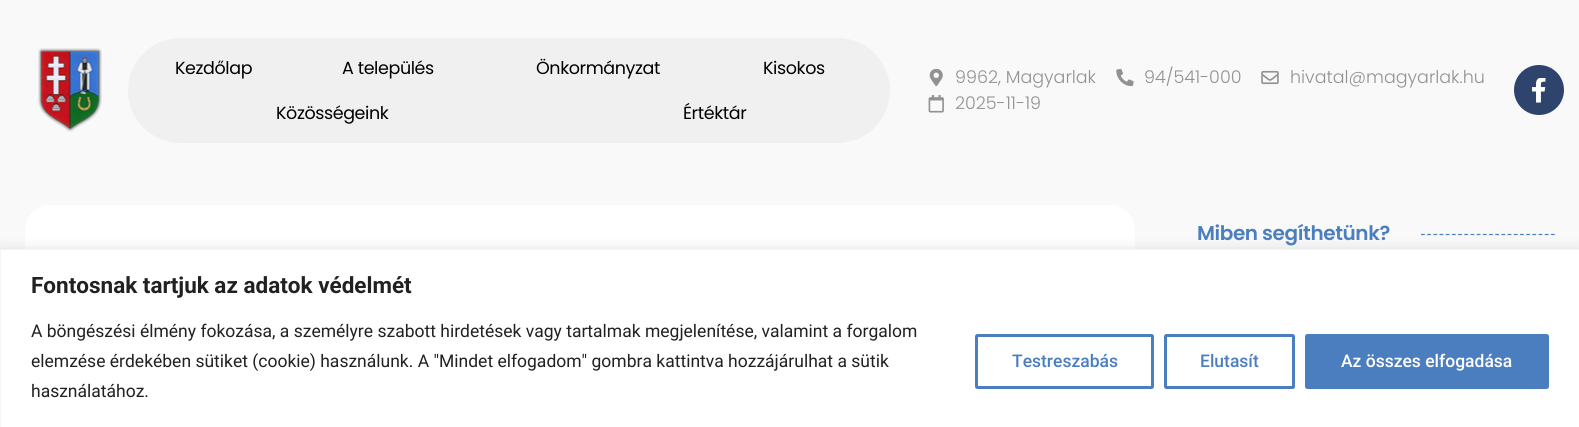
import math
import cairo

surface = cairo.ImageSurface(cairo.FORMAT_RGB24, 1579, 427)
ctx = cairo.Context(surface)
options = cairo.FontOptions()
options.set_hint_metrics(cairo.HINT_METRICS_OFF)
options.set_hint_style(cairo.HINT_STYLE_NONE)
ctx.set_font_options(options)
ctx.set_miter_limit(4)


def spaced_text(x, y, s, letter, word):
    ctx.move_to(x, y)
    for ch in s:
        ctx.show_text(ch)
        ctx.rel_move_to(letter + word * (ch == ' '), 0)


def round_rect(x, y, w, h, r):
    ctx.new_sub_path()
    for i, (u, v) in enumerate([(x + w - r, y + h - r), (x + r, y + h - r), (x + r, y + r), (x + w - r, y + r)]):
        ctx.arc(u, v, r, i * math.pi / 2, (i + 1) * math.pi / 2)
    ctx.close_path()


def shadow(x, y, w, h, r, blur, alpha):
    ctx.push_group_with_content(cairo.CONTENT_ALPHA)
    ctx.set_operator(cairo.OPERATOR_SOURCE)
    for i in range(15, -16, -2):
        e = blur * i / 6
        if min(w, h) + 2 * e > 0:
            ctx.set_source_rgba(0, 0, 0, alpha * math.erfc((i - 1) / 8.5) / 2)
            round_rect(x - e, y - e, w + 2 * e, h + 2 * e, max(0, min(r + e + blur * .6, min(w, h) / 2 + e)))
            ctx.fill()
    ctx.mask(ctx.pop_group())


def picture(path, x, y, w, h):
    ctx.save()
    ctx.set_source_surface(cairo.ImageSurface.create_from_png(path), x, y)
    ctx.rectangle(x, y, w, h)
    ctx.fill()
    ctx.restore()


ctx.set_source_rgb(0.976, 0.976, 0.976)
ctx.paint()
picture("img1.png", 38, 48, 64, 84)
ctx.set_source_rgb(0.941, 0.941, 0.941)
round_rect(128, 38, 762, 105, 52.5)
ctx.fill()
ctx.select_font_face("Poppins")
ctx.set_font_size(17.5)
ctx.set_source_rgb(0, 0, 0)
spaced_text(175, 74, "Kezdőlap", -0.4, 0)
spaced_text(342, 74, "A település", -0.4, 0)
spaced_text(536, 74, "Önkormányzat", -0.4, 0)
spaced_text(763, 74, "Kisokos", -0.4, 0)
spaced_text(276, 119, "Közösségeink", -0.4, 0)
spaced_text(683, 119, "Értéktár", -0.4, 0)
picture("img2.png", 929, 69, 14, 17)
ctx.select_font_face("Poppins Light")
ctx.set_source_rgb(0.573, 0.573, 0.573)
ctx.move_to(955, 83)
ctx.show_text("9962, Magyarlak")
picture("img3.png", 1116, 69, 18, 17)
ctx.move_to(1144, 83)
ctx.show_text("94/541-000")
picture("img4.png", 1261, 70, 18, 15)
ctx.move_to(1290, 83)
ctx.show_text("hivatal@magyarlak.hu")
picture("img5.png", 928, 95, 16, 18)
ctx.move_to(955, 109)
ctx.show_text("2025-11-19")
ctx.set_source_rgb(0.18, 0.267, 0.427)
ctx.new_path()
ctx.arc(1539, 90, 25, 0, 2 * math.pi)
ctx.fill()
picture("img6.png", 1532, 78, 14, 25)
ctx.set_source_rgb(1, 1, 1)
round_rect(25, 205, 1110, 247, 25)
ctx.fill()
ctx.select_font_face("Poppins SemiBold")
ctx.set_font_size(20)
ctx.set_source_rgb(0.294, 0.494, 0.749)
spaced_text(1197, 240, "Miben segíthetünk?", -0.4, 0)
ctx.new_path()
ctx.move_to(1421, 234.5)
ctx.line_to(1555, 234.5)
ctx.set_line_width(1.2)
ctx.set_dash([3.75, 2.44])
ctx.stroke()
ctx.set_source_rgb(0.675, 0.671, 0.671)
shadow(0, 248, 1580, 178, 0, 6, 0.3)
ctx.set_source_rgb(1, 1, 1)
ctx.rectangle(0.5, 249.5, 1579, 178)
ctx.fill_preserve()
ctx.set_source_rgb(0.957, 0.957, 0.957)
ctx.set_line_width(1)
ctx.set_dash([])
ctx.stroke()
ctx.select_font_face("Roboto", cairo.FONT_SLANT_NORMAL, cairo.FONT_WEIGHT_BOLD)
ctx.set_font_size(22.5)
ctx.set_source_rgb(0.129, 0.129, 0.129)
ctx.move_to(31, 293)
ctx.show_text("Fontosnak tartjuk az adatok védelmét")
ctx.select_font_face("Roboto")
ctx.set_font_size(17.5)
ctx.move_to(31, 337)
ctx.show_text("A böngészési élmény fokozása, a személyre szabott hirdetések vagy tartalmak megjelenítése, valamint a forgalom")
ctx.move_to(31, 367)
ctx.show_text("elemzése érdekében sütiket (cookie) használunk. A \"Mindet elfogadom\" gombra kattintva hozzájárulhat a sütik")
ctx.move_to(31, 397)
ctx.show_text("használatához.")
round_rect(976.5, 335.5, 176, 52, 1)
ctx.set_source_rgb(0.294, 0.494, 0.749)
ctx.set_line_width(3)
ctx.stroke()
ctx.select_font_face("Roboto Medium")
ctx.move_to(1012, 367)
ctx.show_text("Testreszabás")
round_rect(1165.5, 335.5, 128, 52, 1)
ctx.stroke()
ctx.move_to(1200, 367)
ctx.show_text("Elutasít")
round_rect(1306.5, 335.5, 241, 52, 1)
ctx.fill_preserve()
ctx.stroke()
ctx.set_source_rgb(1, 1, 1)
ctx.move_to(1341, 367)
ctx.show_text("Az összes elfogadása")
surface.write_to_png("page.png")
